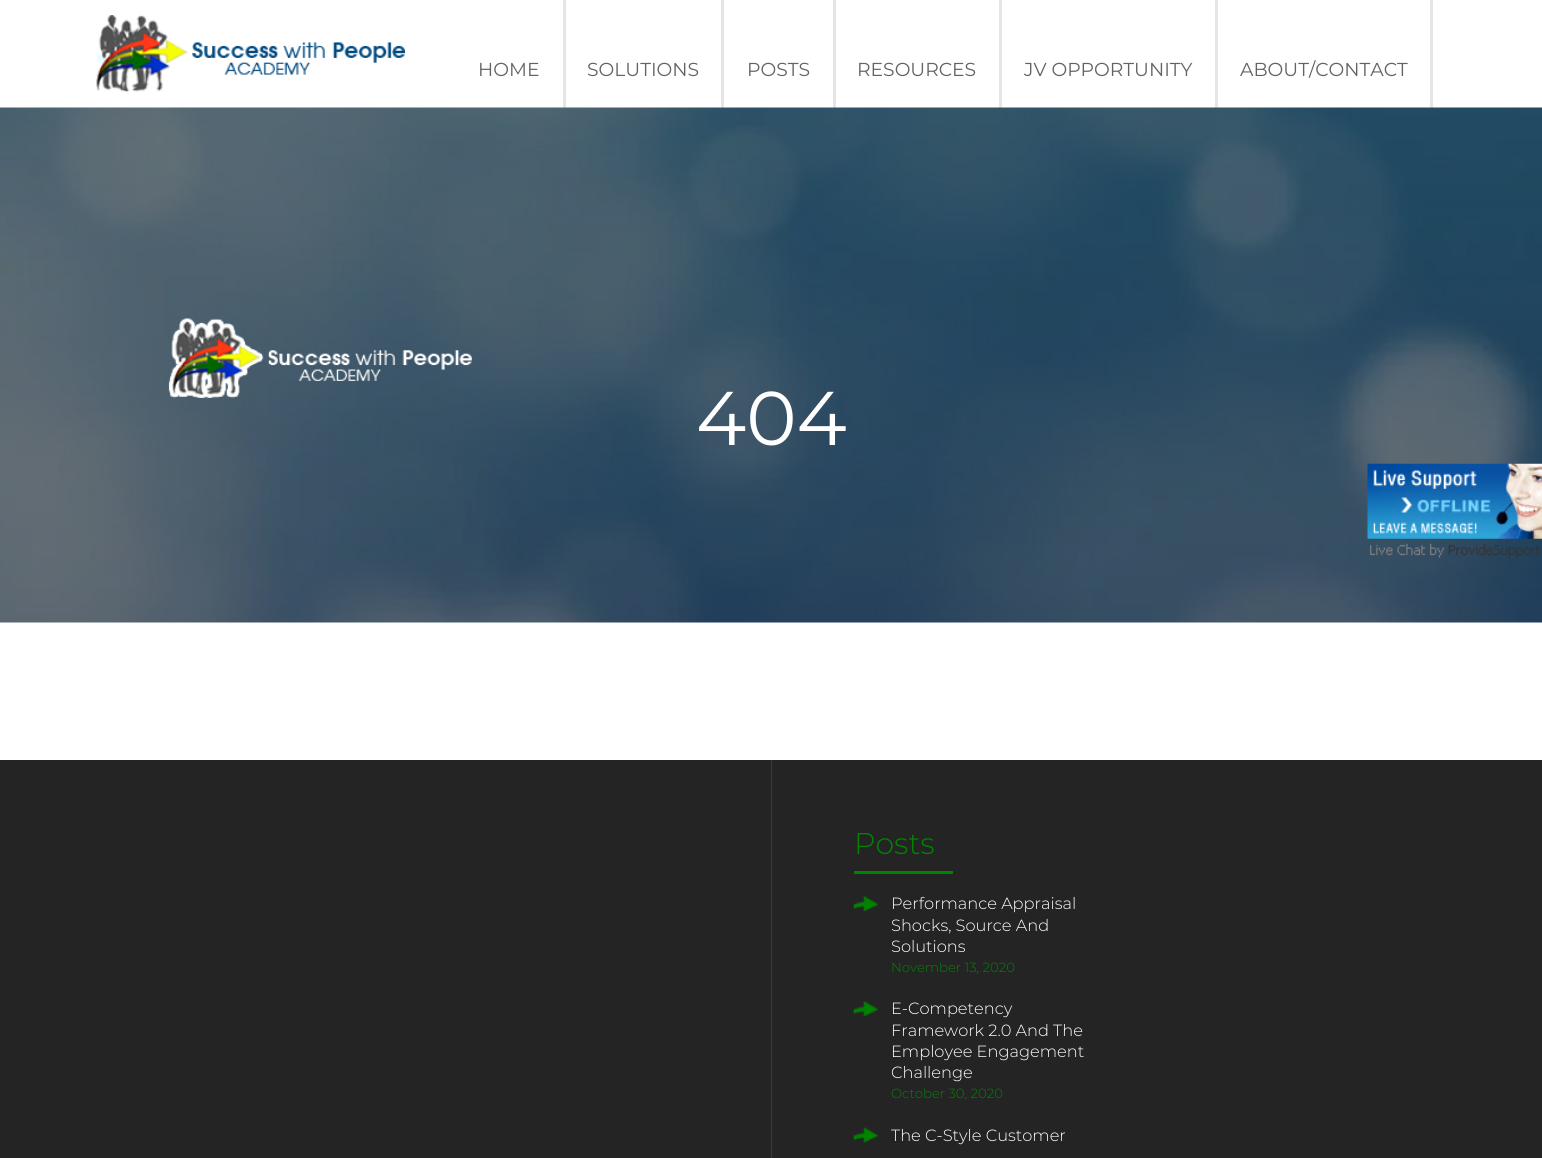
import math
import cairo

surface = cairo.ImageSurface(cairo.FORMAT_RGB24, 1542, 1158)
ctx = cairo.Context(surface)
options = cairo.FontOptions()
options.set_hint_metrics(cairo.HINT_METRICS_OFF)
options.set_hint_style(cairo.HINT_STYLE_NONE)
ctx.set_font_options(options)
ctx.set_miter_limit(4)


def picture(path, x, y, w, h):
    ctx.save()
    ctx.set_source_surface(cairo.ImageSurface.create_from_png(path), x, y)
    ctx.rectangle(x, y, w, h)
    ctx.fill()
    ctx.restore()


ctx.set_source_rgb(1, 1, 1)
ctx.paint()
picture("img1.png", 96, 15, 309, 77)
ctx.set_source_rgb(0.898, 0.898, 0.898)
ctx.rectangle(563, 0, 3, 108)
ctx.fill()
ctx.select_font_face("Montserrat")
ctx.set_font_size(18.75)
ctx.set_source_rgb(0.388, 0.388, 0.388)
ctx.move_to(478, 76)
ctx.show_text("HOME")
ctx.set_source_rgb(0.898, 0.898, 0.898)
ctx.rectangle(721, 0, 3, 108)
ctx.fill()
ctx.set_source_rgb(0.388, 0.388, 0.388)
ctx.move_to(587, 76)
ctx.show_text("SOLUTIONS")
ctx.set_source_rgb(0.898, 0.898, 0.898)
ctx.rectangle(833, 0, 3, 108)
ctx.fill()
ctx.set_source_rgb(0.388, 0.388, 0.388)
ctx.move_to(747, 76)
ctx.show_text("POSTS")
ctx.set_source_rgb(0.898, 0.898, 0.898)
ctx.rectangle(999, 0, 3, 108)
ctx.fill()
ctx.set_source_rgb(0.388, 0.388, 0.388)
ctx.move_to(857, 76)
ctx.show_text("RESOURCES")
ctx.set_source_rgb(0.898, 0.898, 0.898)
ctx.rectangle(1215, 0, 3, 108)
ctx.fill()
ctx.set_source_rgb(0.388, 0.388, 0.388)
ctx.move_to(1024, 76)
ctx.show_text("JV OPPORTUNITY")
ctx.set_source_rgb(0.898, 0.898, 0.898)
ctx.rectangle(1430, 0, 3, 108)
ctx.fill()
ctx.set_source_rgb(0.388, 0.388, 0.388)
ctx.move_to(1240, 76)
ctx.show_text("ABOUT/CONTACT")
picture("img2.png", 0, 107, 1542, 516)
ctx.set_font_size(76)
ctx.set_source_rgb(1, 1, 1)
ctx.move_to(696, 445)
ctx.show_text("404")
picture("img3.png", 1367, 463, 175, 76)
picture("img4.png", 1369, 543, 172, 15)
ctx.set_source_rgb(0.141, 0.141, 0.141)
ctx.rectangle(0, 760, 1542, 398)
ctx.fill()
ctx.set_source_rgb(0.227, 0.227, 0.227)
ctx.rectangle(771, 760, 1, 398)
ctx.fill()
ctx.set_source_rgb(0, 0.518, 0)
ctx.rectangle(854, 871, 99, 3)
ctx.fill()
ctx.select_font_face("Montserrat Light")
ctx.set_font_size(30)
ctx.move_to(854, 854)
ctx.show_text("Posts")
picture("img5.png", 853, 896, 25, 16)
ctx.set_font_size(16.25)
ctx.set_source_rgb(1, 1, 1)
ctx.move_to(891, 909)
ctx.show_text("Performance Appraisal")
ctx.move_to(891, 931)
ctx.show_text("Shocks, Source And")
ctx.move_to(891, 952)
ctx.show_text("Solutions")
ctx.set_font_size(13.25)
ctx.set_source_rgb(0, 0.518, 0)
ctx.move_to(891, 972)
ctx.show_text("November 13, 2020")
picture("img5.png", 853, 1001, 25, 16)
ctx.set_font_size(16.25)
ctx.set_source_rgb(1, 1, 1)
ctx.move_to(891, 1014)
ctx.show_text("E-Competency")
ctx.move_to(891, 1036)
ctx.show_text("Framework 2.0 And The")
ctx.move_to(891, 1057)
ctx.show_text("Employee Engagement")
ctx.move_to(891, 1078)
ctx.show_text("Challenge")
ctx.set_font_size(13.25)
ctx.set_source_rgb(0, 0.518, 0)
ctx.move_to(891, 1098)
ctx.show_text("October 30, 2020")
picture("img6.png", 853, 1127, 25, 16)
ctx.set_font_size(16.25)
ctx.set_source_rgb(1, 1, 1)
ctx.move_to(891, 1141)
ctx.show_text("The C-Style Customer")
surface.write_to_png("page.png")
